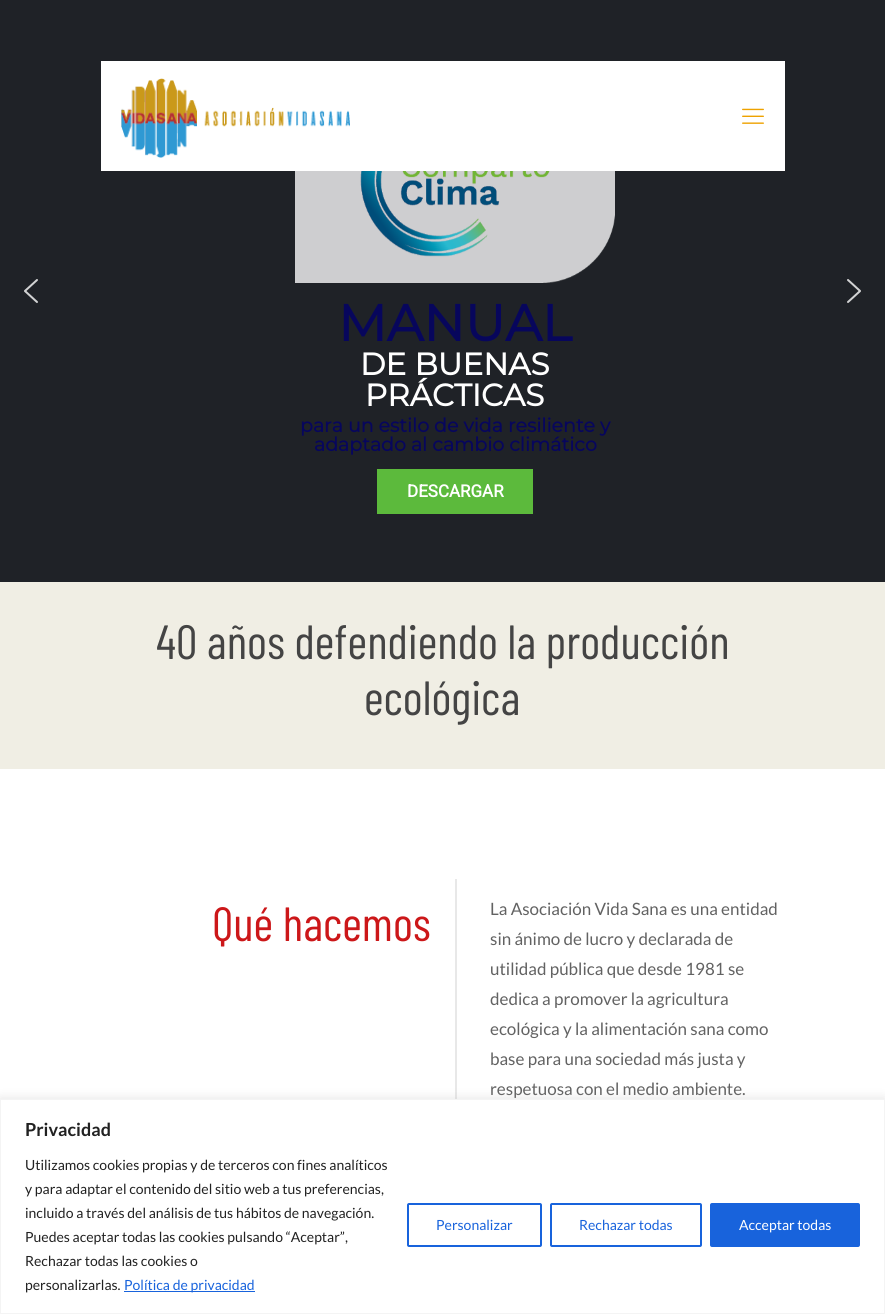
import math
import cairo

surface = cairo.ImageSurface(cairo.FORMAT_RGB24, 885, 1314)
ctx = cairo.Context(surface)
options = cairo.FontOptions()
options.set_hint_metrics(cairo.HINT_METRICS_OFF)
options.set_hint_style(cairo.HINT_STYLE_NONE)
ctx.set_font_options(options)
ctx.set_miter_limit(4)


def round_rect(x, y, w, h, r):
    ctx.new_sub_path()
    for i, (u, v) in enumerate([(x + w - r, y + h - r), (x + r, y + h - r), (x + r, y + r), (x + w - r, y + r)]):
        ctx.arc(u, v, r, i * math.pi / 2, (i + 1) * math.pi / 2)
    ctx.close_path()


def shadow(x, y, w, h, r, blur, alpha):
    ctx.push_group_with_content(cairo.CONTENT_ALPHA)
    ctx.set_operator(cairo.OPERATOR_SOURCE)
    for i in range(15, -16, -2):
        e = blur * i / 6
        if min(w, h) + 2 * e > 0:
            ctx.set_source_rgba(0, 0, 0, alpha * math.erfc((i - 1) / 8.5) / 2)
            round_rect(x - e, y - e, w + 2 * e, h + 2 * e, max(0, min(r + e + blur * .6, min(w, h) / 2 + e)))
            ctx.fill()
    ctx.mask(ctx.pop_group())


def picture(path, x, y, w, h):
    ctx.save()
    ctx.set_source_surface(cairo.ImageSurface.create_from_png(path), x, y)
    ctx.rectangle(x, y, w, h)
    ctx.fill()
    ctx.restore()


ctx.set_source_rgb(1, 1, 1)
ctx.paint()
ctx.set_source_rgb(0.122, 0.133, 0.153)
ctx.rectangle(0, 0, 885, 582)
ctx.fill()
ctx.set_source_rgb(1, 1, 1)
ctx.rectangle(101, 61, 684, 110)
ctx.fill()
picture("img1.png", 121, 78, 229, 80)
picture("img2.png", 742, 108, 22, 16)
picture("img3.png", 24, 279, 14, 24)
picture("img4.png", 847, 279, 14, 24)
picture("img5.png", 295, 171, 320, 112)
ctx.select_font_face("Montserrat", cairo.FONT_SLANT_NORMAL, cairo.FONT_WEIGHT_BOLD)
ctx.set_font_size(51)
ctx.set_source_rgb(0.031, 0.027, 0.361)
ctx.move_to(338, 341)
ctx.show_text("MANUAL")
ctx.set_font_size(31)
ctx.set_source_rgb(1, 1, 1)
ctx.move_to(360, 375)
ctx.show_text("DE BUENAS")
ctx.move_to(365, 406)
ctx.show_text("PRÁCTICAS")
ctx.set_font_size(19)
ctx.set_source_rgb(0.031, 0.027, 0.361)
ctx.move_to(300, 432)
ctx.show_text("para un estilo de vida resiliente y")
ctx.move_to(314, 451)
ctx.show_text("adaptado al cambio climático")
ctx.set_source_rgb(0.361, 0.729, 0.235)
ctx.rectangle(377, 469, 156, 45)
ctx.fill()
ctx.select_font_face("Roboto", cairo.FONT_SLANT_NORMAL, cairo.FONT_WEIGHT_BOLD)
ctx.set_font_size(17)
ctx.set_source_rgb(1, 1, 1)
ctx.move_to(407, 497)
ctx.show_text("DESCARGAR")
ctx.set_source_rgb(0.941, 0.933, 0.894)
ctx.rectangle(0, 582, 885, 187)
ctx.fill()
ctx.select_font_face("Barlow Condensed")
ctx.set_font_size(48)
ctx.set_source_rgb(0.267, 0.267, 0.267)
ctx.move_to(156, 659)
ctx.show_text("40 años defendiendo la producción")
ctx.move_to(364, 715)
ctx.show_text("ecológica")
ctx.set_source_rgb(0.8, 0.09, 0.098)
ctx.move_to(212, 941)
ctx.show_text("Qué hacemos")
ctx.set_source_rgb(0.91, 0.91, 0.91)
ctx.rectangle(455, 879, 2, 220)
ctx.fill()
ctx.select_font_face("Lato")
ctx.set_font_size(17)
ctx.set_source_rgb(0.384, 0.384, 0.384)
ctx.move_to(490, 915)
ctx.show_text("La Asociación Vida Sana es una entidad")
ctx.move_to(490, 945)
ctx.show_text("sin ánimo de lucro y declarada de")
ctx.move_to(490, 975)
ctx.show_text("utilidad pública que desde 1981 se")
ctx.move_to(490, 1005)
ctx.show_text("dedica a promover la agricultura")
ctx.move_to(490, 1035)
ctx.show_text("ecológica y la alimentación sana como")
ctx.move_to(490, 1065)
ctx.show_text("base para una sociedad más justa y")
ctx.move_to(490, 1095)
ctx.show_text("respetuosa con el medio ambiente.")
ctx.set_source_rgb(0.675, 0.671, 0.671)
shadow(0, 1098, 885, 215, 0, 5, 0.3)
ctx.set_source_rgb(1, 1, 1)
ctx.rectangle(0.5, 1099.5, 884, 214)
ctx.fill_preserve()
ctx.set_source_rgb(0.957, 0.957, 0.957)
ctx.set_line_width(1)
ctx.stroke()
ctx.select_font_face("Lato", cairo.FONT_SLANT_NORMAL, cairo.FONT_WEIGHT_BOLD)
ctx.set_font_size(18)
ctx.set_source_rgb(0.129, 0.129, 0.129)
ctx.move_to(25, 1136)
ctx.show_text("Privacidad")
ctx.select_font_face("Lato")
ctx.set_font_size(14)
ctx.move_to(25, 1170)
ctx.show_text("Utilizamos cookies propias y de terceros con fines analíticos")
ctx.move_to(25, 1194)
ctx.show_text("y para adaptar el contenido del sitio web a tus preferencias,")
ctx.move_to(25, 1218)
ctx.show_text("incluido a través del análisis de tus hábitos de navegación.")
ctx.move_to(25, 1242)
ctx.show_text("Puedes aceptar todas las cookies pulsando “Aceptar”,")
ctx.move_to(25, 1266)
ctx.show_text("Rechazar todas las cookies o")
ctx.move_to(25, 1290)
ctx.show_text("personalizarlas.")
ctx.set_source_rgb(0.094, 0.388, 0.863)
ctx.rectangle(124, 1291, 131, 1)
ctx.fill()
ctx.move_to(124, 1290)
ctx.show_text("Política de privacidad")
round_rect(408, 1204, 133, 42, 1)
ctx.set_line_width(2)
ctx.stroke()
ctx.move_to(436, 1230)
ctx.show_text("Personalizar")
round_rect(551, 1204, 150, 42, 1)
ctx.stroke()
ctx.move_to(579, 1230)
ctx.show_text("Rechazar todas")
round_rect(711, 1204, 148, 42, 1)
ctx.fill_preserve()
ctx.stroke()
ctx.set_source_rgb(1, 1, 1)
ctx.move_to(739, 1230)
ctx.show_text("Acceptar todas")
surface.write_to_png("page.png")
